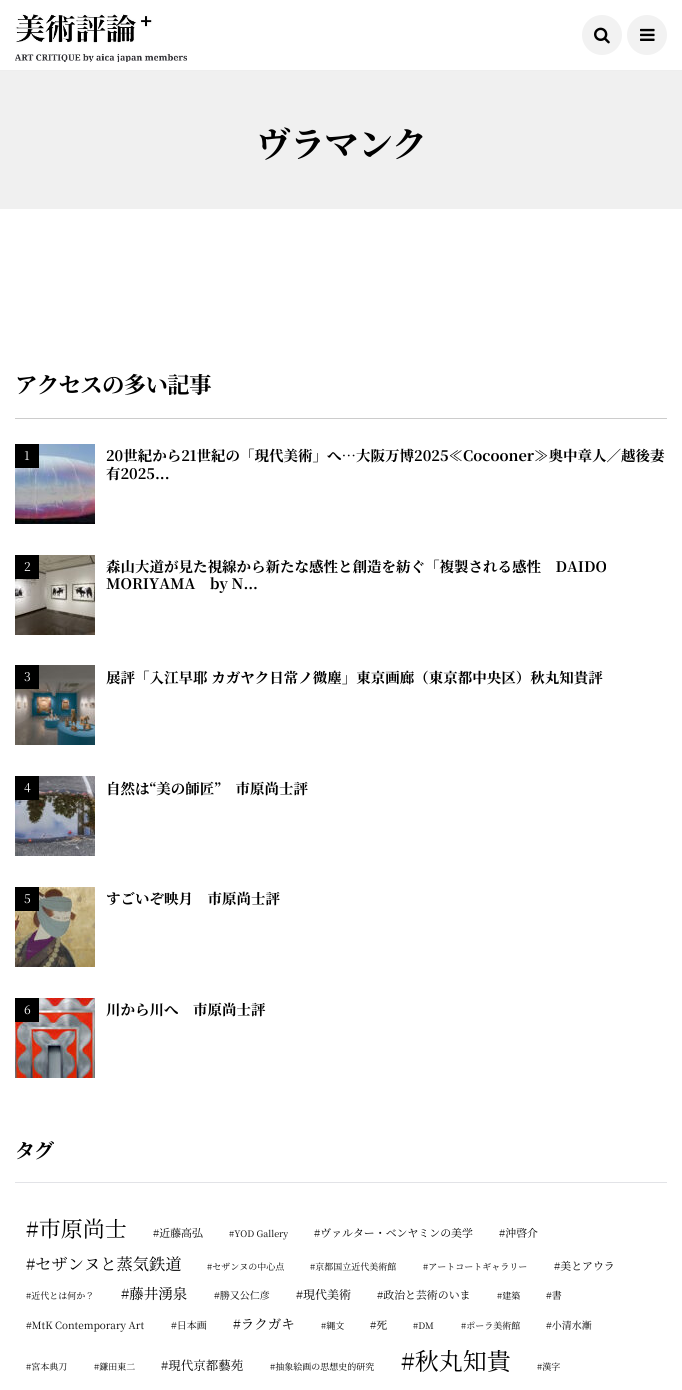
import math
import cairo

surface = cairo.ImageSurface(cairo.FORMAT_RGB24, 682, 1390)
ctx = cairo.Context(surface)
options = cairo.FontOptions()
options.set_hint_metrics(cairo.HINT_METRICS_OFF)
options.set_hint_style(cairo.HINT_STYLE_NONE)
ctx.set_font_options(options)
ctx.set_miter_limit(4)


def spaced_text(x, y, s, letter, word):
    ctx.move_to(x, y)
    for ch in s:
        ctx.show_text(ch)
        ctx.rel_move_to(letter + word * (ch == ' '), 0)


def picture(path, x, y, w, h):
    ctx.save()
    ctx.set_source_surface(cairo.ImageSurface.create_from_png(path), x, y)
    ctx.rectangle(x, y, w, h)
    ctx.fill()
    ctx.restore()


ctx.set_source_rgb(1, 1, 1)
ctx.paint()
ctx.set_source_rgb(0.933, 0.933, 0.933)
ctx.rectangle(0, 70, 682, 1)
ctx.fill()
picture("img1.png", 15, 13, 172, 49)
ctx.set_source_rgb(0.949, 0.949, 0.949)
ctx.arc(602, 35, 20, 0, 2 * math.pi)
ctx.fill()
picture("img2.png", 594, 27, 16, 17)
ctx.arc(647, 35, 20, 0, 2 * math.pi)
ctx.fill()
picture("img3.png", 640, 28, 15, 13)
ctx.set_source_rgb(0.941, 0.941, 0.941)
ctx.rectangle(0, 71, 682, 138)
ctx.fill()
ctx.select_font_face("Noto Serif JP", cairo.FONT_SLANT_NORMAL, cairo.FONT_WEIGHT_BOLD)
ctx.set_font_size(35)
ctx.set_source_rgb(0, 0, 0)
spaced_text(256, 157, "ヴラマンク", -1, 0)
ctx.set_source_rgb(0.8, 0.8, 0.8)
ctx.rectangle(15, 418, 652, 1)
ctx.fill()
ctx.set_font_size(22.5)
ctx.set_source_rgb(0, 0, 0)
spaced_text(15, 393, "アクセスの多い記事", -0.75, 0)
picture("img4.png", 15, 444, 80, 80)
ctx.rectangle(15, 444, 24, 24)
ctx.fill()
ctx.select_font_face("Noto Serif JP")
ctx.set_font_size(12)
ctx.set_source_rgb(1, 1, 1)
ctx.move_to(24, 460)
ctx.show_text("1")
ctx.select_font_face("Noto Serif JP", cairo.FONT_SLANT_NORMAL, cairo.FONT_WEIGHT_BOLD)
ctx.set_font_size(14.5)
ctx.set_source_rgb(0, 0, 0)
ctx.move_to(106, 461)
ctx.show_text("20世紀から21世紀の「現代美術」へ…大阪万博2025≪Cocooner≫奥中章人／越後妻")
ctx.move_to(106, 479)
ctx.show_text("有2025...")
picture("img5.png", 15, 555, 80, 80)
ctx.rectangle(15, 555, 24, 24)
ctx.fill()
ctx.select_font_face("Noto Serif JP")
ctx.set_font_size(12)
ctx.set_source_rgb(1, 1, 1)
ctx.move_to(24, 571)
ctx.show_text("2")
ctx.select_font_face("Noto Serif JP", cairo.FONT_SLANT_NORMAL, cairo.FONT_WEIGHT_BOLD)
ctx.set_font_size(14.5)
ctx.set_source_rgb(0, 0, 0)
ctx.move_to(106, 572)
ctx.show_text("森山大道が見た視線から新たな感性と創造を紡ぐ「複製される感性　DAIDO")
ctx.move_to(106, 589)
ctx.show_text("MORIYAMA　by N...")
picture("img6.png", 15, 665, 80, 80)
ctx.rectangle(15, 665, 24, 24)
ctx.fill()
ctx.select_font_face("Noto Serif JP")
ctx.set_font_size(12)
ctx.set_source_rgb(1, 1, 1)
ctx.move_to(24, 681)
ctx.show_text("3")
ctx.select_font_face("Noto Serif JP", cairo.FONT_SLANT_NORMAL, cairo.FONT_WEIGHT_BOLD)
ctx.set_font_size(14.5)
ctx.set_source_rgb(0, 0, 0)
ctx.move_to(106, 683)
ctx.show_text("展評「入江早耶 カガヤク日常ノ微塵」東京画廊（東京都中央区）秋丸知貴評")
picture("img7.png", 15, 776, 80, 80)
ctx.rectangle(15, 776, 24, 24)
ctx.fill()
ctx.select_font_face("Noto Serif JP")
ctx.set_font_size(12)
ctx.set_source_rgb(1, 1, 1)
ctx.move_to(24, 792)
ctx.show_text("4")
ctx.select_font_face("Noto Serif JP", cairo.FONT_SLANT_NORMAL, cairo.FONT_WEIGHT_BOLD)
ctx.set_font_size(14.5)
ctx.set_source_rgb(0, 0, 0)
ctx.move_to(106, 794)
ctx.show_text("自然は“美の師匠”　市原尚士評")
picture("img8.png", 15, 887, 80, 80)
ctx.rectangle(15, 887, 24, 24)
ctx.fill()
ctx.select_font_face("Noto Serif JP")
ctx.set_font_size(12)
ctx.set_source_rgb(1, 1, 1)
ctx.move_to(24, 903)
ctx.show_text("5")
ctx.select_font_face("Noto Serif JP", cairo.FONT_SLANT_NORMAL, cairo.FONT_WEIGHT_BOLD)
ctx.set_font_size(14.5)
ctx.set_source_rgb(0, 0, 0)
ctx.move_to(106, 904)
ctx.show_text("すごいぞ映月　市原尚士評")
picture("img9.png", 15, 998, 80, 80)
ctx.rectangle(15, 998, 24, 24)
ctx.fill()
ctx.select_font_face("Noto Serif JP")
ctx.set_font_size(12)
ctx.set_source_rgb(1, 1, 1)
ctx.move_to(24, 1014)
ctx.show_text("6")
ctx.select_font_face("Noto Serif JP", cairo.FONT_SLANT_NORMAL, cairo.FONT_WEIGHT_BOLD)
ctx.set_font_size(14.5)
ctx.set_source_rgb(0, 0, 0)
ctx.move_to(106, 1015)
ctx.show_text("川から川へ　市原尚士評")
ctx.set_source_rgb(0.886, 0.89, 0.906)
ctx.rectangle(15, 1182, 652, 1)
ctx.fill()
ctx.set_font_size(20)
ctx.set_source_rgb(0, 0, 0)
spaced_text(15, 1158, "タグ", -1, 0)
ctx.select_font_face("Noto Serif JP")
ctx.set_font_size(22)
ctx.move_to(26, 1237)
ctx.show_text("#市原尚士")
ctx.set_font_size(10.9)
ctx.move_to(153, 1237)
ctx.show_text("#近藤高弘")
ctx.set_font_size(9)
ctx.move_to(229, 1237)
ctx.show_text("#YOD Gallery")
ctx.set_font_size(10.9)
ctx.move_to(314, 1237)
ctx.show_text("#ヴァルター・ベンヤミンの美学")
ctx.move_to(499, 1237)
ctx.show_text("#沖啓介")
ctx.set_font_size(16.25)
ctx.move_to(26, 1270)
ctx.show_text("#セザンヌと蒸気鉄道")
ctx.set_font_size(9)
ctx.move_to(207, 1270)
ctx.show_text("#セザンヌの中心点")
ctx.move_to(310, 1270)
ctx.show_text("#京都国立近代美術館")
ctx.move_to(423, 1270)
ctx.show_text("#アートコートギャラリー")
ctx.set_font_size(10.9)
ctx.move_to(554, 1270)
ctx.show_text("#美とアウラ")
ctx.set_font_size(9)
ctx.move_to(26, 1299)
ctx.show_text("#近代とは何か？")
ctx.set_font_size(14.5)
ctx.move_to(121, 1299)
ctx.show_text("#藤井湧泉")
ctx.set_font_size(10)
ctx.move_to(214, 1299)
ctx.show_text("#勝又公仁彦")
ctx.set_font_size(12)
ctx.move_to(296, 1299)
ctx.show_text("#現代美術")
ctx.set_font_size(10.9)
ctx.move_to(377, 1299)
ctx.show_text("#政治と芸術のいま")
ctx.set_font_size(9)
ctx.move_to(497, 1299)
ctx.show_text("#建築")
ctx.set_font_size(10)
ctx.move_to(546, 1299)
ctx.show_text("#書")
ctx.move_to(26, 1329)
ctx.show_text("#MtK Contemporary Art")
ctx.move_to(171, 1329)
ctx.show_text("#日本画")
ctx.set_font_size(13.5)
ctx.move_to(233, 1329)
ctx.show_text("#ラクガキ")
ctx.set_font_size(9)
ctx.move_to(321, 1329)
ctx.show_text("#縄文")
ctx.set_font_size(10.9)
ctx.move_to(370, 1329)
ctx.show_text("#死")
ctx.set_font_size(9)
ctx.move_to(413, 1329)
ctx.show_text("#DM")
ctx.move_to(461, 1329)
ctx.show_text("#ポーラ美術館")
ctx.set_font_size(10)
ctx.move_to(546, 1329)
ctx.show_text("#小清水漸")
ctx.set_font_size(9)
ctx.move_to(26, 1370)
ctx.show_text("#宮本典刀")
ctx.move_to(94, 1370)
ctx.show_text("#鎌田東二")
ctx.set_font_size(12.5)
ctx.move_to(161, 1370)
ctx.show_text("#現代京都藝苑")
ctx.set_font_size(9)
ctx.move_to(270, 1370)
ctx.show_text("#抽象絵画の思想史的研究")
ctx.set_font_size(24)
ctx.move_to(401, 1370)
ctx.show_text("#秋丸知貴")
ctx.set_font_size(9)
ctx.move_to(537, 1370)
ctx.show_text("#漢字")
surface.write_to_png("page.png")
